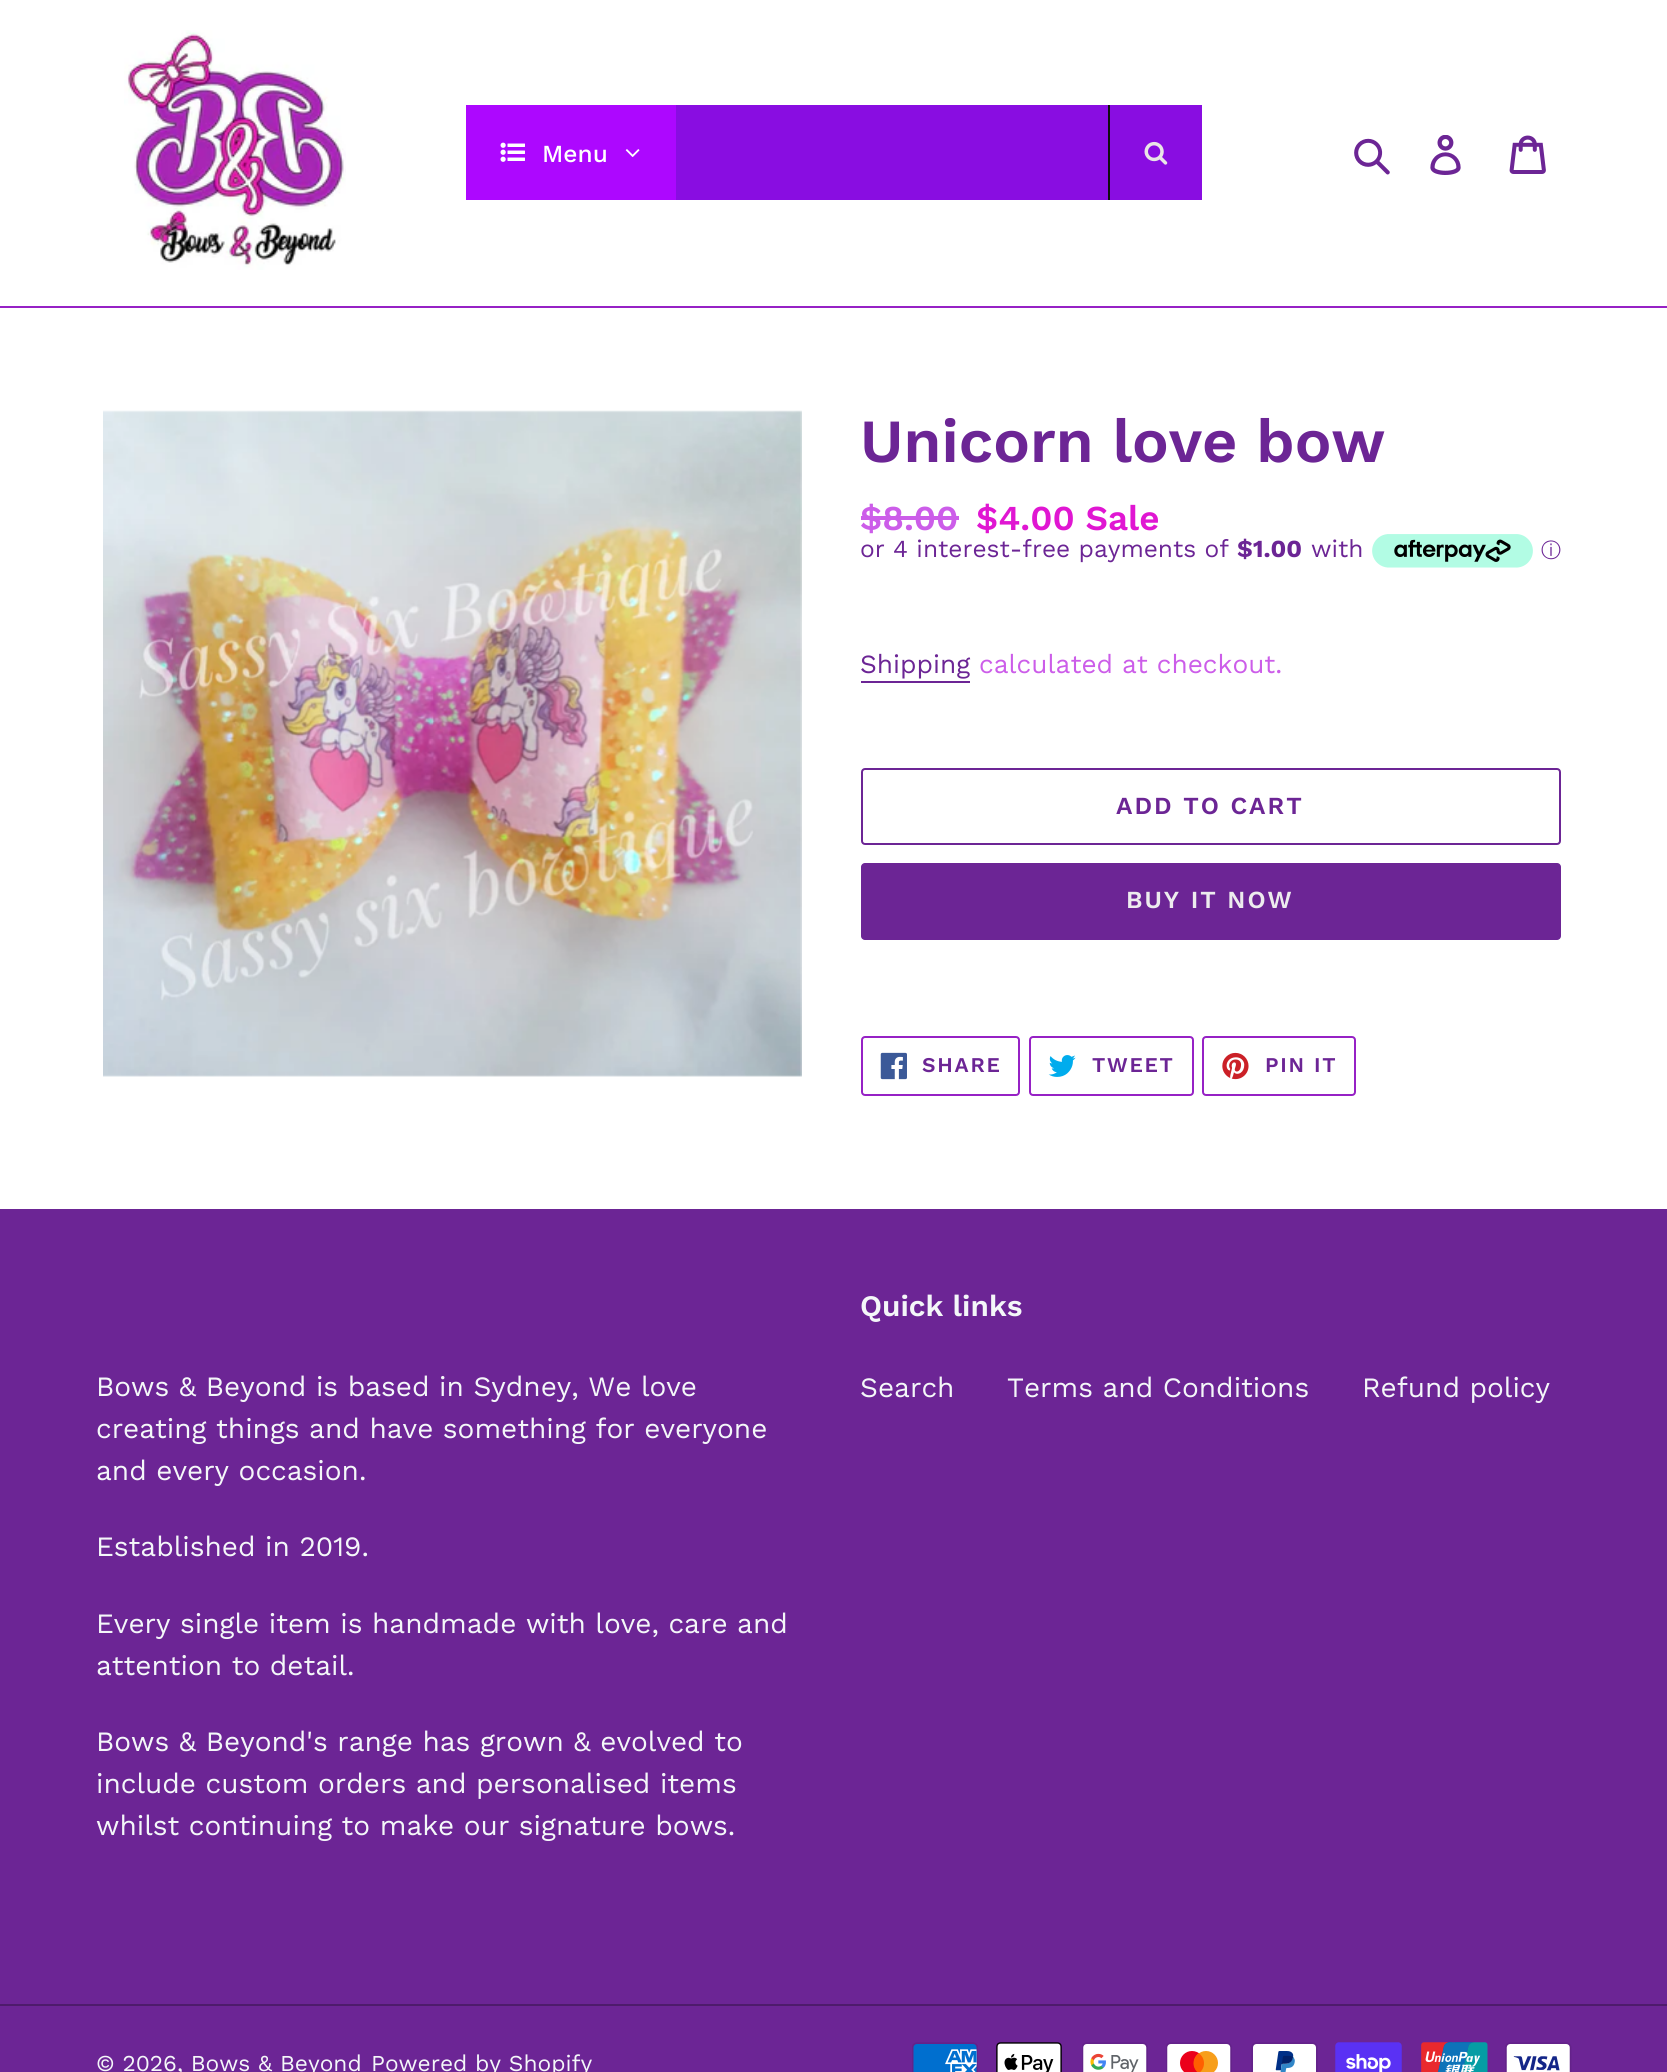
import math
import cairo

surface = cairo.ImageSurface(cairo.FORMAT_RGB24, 1667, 2072)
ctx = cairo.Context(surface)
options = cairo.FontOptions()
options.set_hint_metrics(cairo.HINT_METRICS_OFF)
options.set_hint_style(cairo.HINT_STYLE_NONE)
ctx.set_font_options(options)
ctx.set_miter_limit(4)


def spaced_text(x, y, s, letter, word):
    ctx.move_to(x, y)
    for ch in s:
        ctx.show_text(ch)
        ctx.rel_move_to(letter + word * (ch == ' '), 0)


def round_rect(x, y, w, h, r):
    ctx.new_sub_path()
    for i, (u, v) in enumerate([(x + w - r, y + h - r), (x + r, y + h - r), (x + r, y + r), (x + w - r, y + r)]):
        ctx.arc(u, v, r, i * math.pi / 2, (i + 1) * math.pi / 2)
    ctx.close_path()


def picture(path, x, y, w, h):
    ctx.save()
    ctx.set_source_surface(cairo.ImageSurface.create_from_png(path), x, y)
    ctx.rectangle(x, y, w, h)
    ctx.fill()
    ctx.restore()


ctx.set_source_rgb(1, 1, 1)
ctx.paint()
ctx.set_source_rgb(0.588, 0.129, 0.773)
ctx.rectangle(0, 306, 1667, 2)
ctx.fill()
picture("img1.png", 124, 30, 222, 240)
ctx.set_source_rgb(0.537, 0.051, 0.882)
ctx.rectangle(676, 105, 526, 95)
ctx.fill()
ctx.set_source_rgb(0.678, 0.031, 1)
ctx.rectangle(466, 105, 210, 95)
ctx.fill()
picture("img2.png", 500, 142, 25, 20)
ctx.select_font_face("Work Sans Medium")
ctx.set_font_size(24.5)
ctx.set_source_rgb(1, 1, 1)
ctx.move_to(542, 162)
ctx.show_text("Menu")
picture("img3.png", 625, 149, 15, 8)
ctx.set_source_rgb(0.059, 0.059, 0.059)
ctx.rectangle(1108, 105, 2, 95)
ctx.fill()
picture("img4.png", 1144, 141, 24, 24)
picture("img5.png", 1354, 138, 36, 37)
picture("img6.png", 1430, 135, 31, 40)
picture("img7.png", 1509, 135, 37, 39)
picture("img8.png", 103, 410, 699, 667)
ctx.select_font_face("Work Sans SemiBold")
ctx.set_font_size(61.25)
ctx.set_source_rgb(0.424, 0.145, 0.584)
ctx.move_to(860, 462)
ctx.show_text("Unicorn love bow")
ctx.set_font_size(35)
ctx.set_source_rgb(0.8, 0.365, 0.914)
ctx.move_to(860, 530)
ctx.show_text("$8.00")
ctx.rectangle(861, 516, 98, 4)
ctx.fill()
ctx.set_source_rgb(0.878, 0.086, 0.824)
ctx.move_to(976, 530)
ctx.show_text("$4.00 Sale")
ctx.select_font_face("Work Sans")
ctx.set_font_size(24.5)
ctx.set_source_rgb(0.424, 0.145, 0.584)
ctx.move_to(860, 557)
ctx.show_text("or 4 interest-free payments of")
ctx.select_font_face("Work Sans", cairo.FONT_SLANT_NORMAL, cairo.FONT_WEIGHT_BOLD)
ctx.move_to(1237, 557)
ctx.show_text("$1.00")
ctx.select_font_face("Work Sans")
ctx.move_to(1311, 557)
ctx.show_text("with")
picture("img9.png", 1372, 534, 161, 34)
ctx.select_font_face("WenQuanYi Zen Hei Medium")
ctx.set_font_size(20)
ctx.move_to(1541, 557)
ctx.show_text("ⓘ")
ctx.select_font_face("Work Sans")
ctx.set_font_size(26.25)
ctx.move_to(860, 673)
ctx.show_text("Shipping")
ctx.rectangle(861, 681, 109, 2)
ctx.fill()
ctx.set_source_rgb(0.8, 0.365, 0.914)
ctx.move_to(979, 673)
ctx.show_text("calculated at checkout.")
round_rect(862, 769, 698, 75, 3)
ctx.set_source_rgb(0.424, 0.145, 0.584)
ctx.stroke()
ctx.select_font_face("Work Sans SemiBold")
ctx.set_font_size(24.5)
spaced_text(1116, 814, "ADD TO CART", 2, 0)
round_rect(861, 863, 700, 77, 4)
ctx.fill()
ctx.set_source_rgb(0.929, 0.925, 0.933)
spaced_text(1126, 908, "BUY IT NOW", 2, 0)
round_rect(862, 1037, 157, 58, 3)
ctx.set_source_rgb(0.588, 0.129, 0.773)
ctx.stroke()
picture("img10.png", 880, 1052, 27, 28)
ctx.set_font_size(21)
ctx.set_source_rgb(0.424, 0.145, 0.584)
spaced_text(922, 1072, "SHARE", 1.75, 0)
round_rect(1030, 1037, 163, 58, 3)
ctx.set_source_rgb(0.588, 0.129, 0.773)
ctx.stroke()
picture("img11.png", 1048, 1055, 28, 22)
ctx.set_source_rgb(0.424, 0.145, 0.584)
spaced_text(1092, 1072, "TWEET", 1.75, 0)
round_rect(1203, 1037, 152, 58, 3)
ctx.set_source_rgb(0.588, 0.129, 0.773)
ctx.stroke()
picture("img12.png", 1222, 1052, 27, 28)
ctx.set_source_rgb(0.424, 0.145, 0.584)
spaced_text(1265, 1072, "PIN IT", 1.75, 0)
ctx.rectangle(0, 1209, 1667, 863)
ctx.fill()
ctx.set_font_size(29.75)
ctx.set_source_rgb(0.957, 0.965, 0.973)
ctx.move_to(860, 1316)
ctx.show_text("Quick links")
ctx.select_font_face("Work Sans")
ctx.set_font_size(28)
ctx.move_to(860, 1397)
ctx.show_text("Search")
ctx.move_to(1007, 1397)
ctx.show_text("Terms and Conditions")
ctx.move_to(1362, 1397)
ctx.show_text("Refund policy")
ctx.move_to(96, 1396)
ctx.show_text("Bows & Beyond is based in Sydney, We love")
ctx.move_to(96, 1438)
ctx.show_text("creating things and have something for everyone")
ctx.move_to(96, 1480)
ctx.show_text("and every occasion.")
ctx.move_to(96, 1556)
ctx.show_text("Established in 2019.")
ctx.move_to(96, 1633)
ctx.show_text("Every single item is handmade with love, care and")
ctx.move_to(96, 1675)
ctx.show_text("attention to detail.")
ctx.move_to(96, 1751)
ctx.show_text("Bows & Beyond's range has grown & evolved to")
ctx.move_to(96, 1793)
ctx.show_text("include custom orders and personalised items")
ctx.move_to(96, 1835)
ctx.show_text("whilst continuing to make our signature bows.")
ctx.set_source_rgb(0.306, 0.106, 0.424)
ctx.rectangle(0, 2004, 1667, 2)
ctx.fill()
ctx.set_font_size(22.75)
ctx.set_source_rgb(0.957, 0.965, 0.973)
ctx.move_to(96, 2071)
ctx.show_text("© 2026, Bows & Beyond")
ctx.move_to(371, 2071)
ctx.show_text("Powered by Shopify")
picture("img13.png", 912, 2042, 66, 30)
picture("img14.png", 996, 2042, 66, 30)
picture("img15.png", 1082, 2042, 66, 30)
picture("img16.png", 1166, 2042, 66, 30)
picture("img17.png", 1251, 2042, 67, 30)
picture("img18.png", 1335, 2042, 67, 30)
picture("img19.png", 1421, 2042, 67, 30)
picture("img20.png", 1505, 2042, 67, 30)
surface.write_to_png("page.png")
